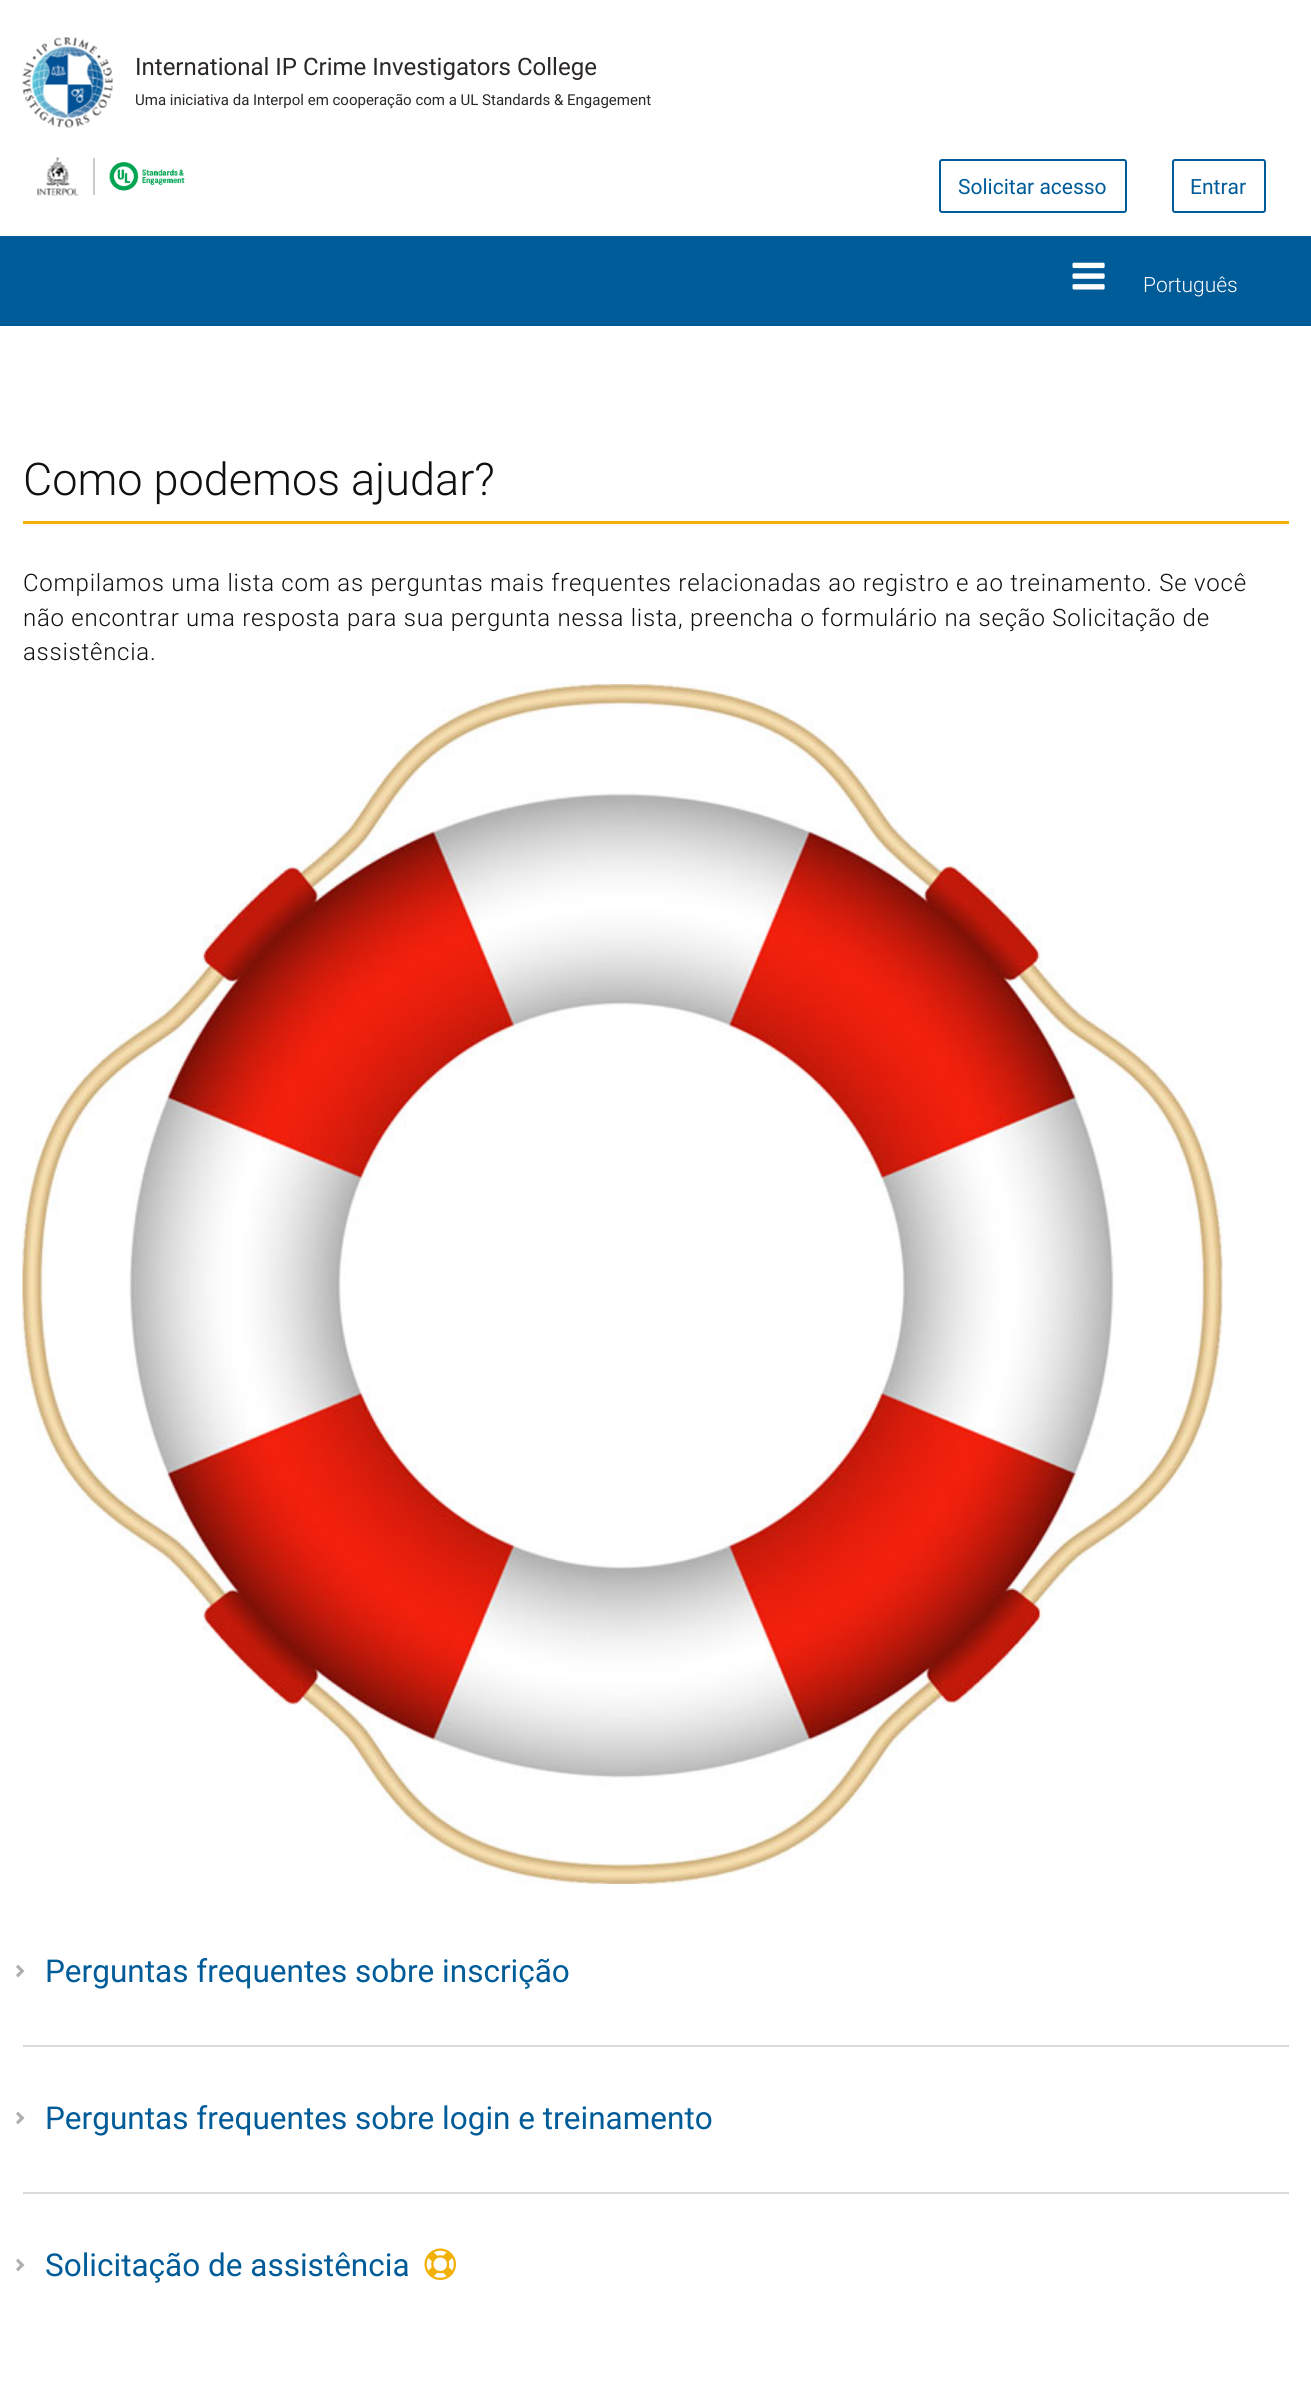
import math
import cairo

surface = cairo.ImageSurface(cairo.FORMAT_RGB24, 1311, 2402)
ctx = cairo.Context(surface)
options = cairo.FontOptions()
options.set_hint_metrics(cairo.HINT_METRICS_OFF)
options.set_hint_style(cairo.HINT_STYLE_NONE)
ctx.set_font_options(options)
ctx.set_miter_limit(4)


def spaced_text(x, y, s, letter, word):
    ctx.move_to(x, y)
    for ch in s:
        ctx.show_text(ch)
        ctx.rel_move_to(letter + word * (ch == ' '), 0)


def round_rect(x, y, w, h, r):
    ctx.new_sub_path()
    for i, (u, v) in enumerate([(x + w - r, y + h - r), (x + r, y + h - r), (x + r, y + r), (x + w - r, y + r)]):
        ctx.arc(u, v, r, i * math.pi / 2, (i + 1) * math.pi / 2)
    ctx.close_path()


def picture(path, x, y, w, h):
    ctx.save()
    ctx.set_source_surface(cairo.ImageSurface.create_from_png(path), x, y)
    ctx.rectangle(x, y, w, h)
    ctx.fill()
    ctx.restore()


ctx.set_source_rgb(1, 1, 1)
ctx.paint()
picture("img1.png", 22, 37, 91, 91)
ctx.select_font_face("Roboto")
ctx.set_font_size(24)
ctx.set_source_rgb(0.169, 0.153, 0.157)
ctx.move_to(135, 75)
ctx.show_text("International IP Crime Investigators College")
ctx.set_font_size(15)
ctx.move_to(135, 105)
ctx.show_text("Uma iniciativa da Interpol em cooperação com a UL Standards & Engagement")
ctx.set_source_rgb(0.8, 0.8, 0.8)
ctx.rectangle(93, 158, 2, 37)
ctx.fill()
picture("img2.png", 37, 157, 42, 39)
picture("img3.png", 109, 162, 76, 29)
round_rect(940, 160, 186, 52, 2)
ctx.set_source_rgb(0, 0.357, 0.6)
ctx.stroke()
ctx.set_font_size(21)
ctx.move_to(958, 194)
ctx.show_text("Solicitar acesso")
round_rect(1173, 160, 92, 52, 2)
ctx.stroke()
ctx.move_to(1190, 194)
ctx.show_text("Entrar")
ctx.rectangle(0, 236, 1311, 90)
ctx.fill()
picture("img4.png", 1072, 262, 33, 28)
ctx.select_font_face("Roboto Light")
ctx.set_source_rgb(1, 1, 1)
ctx.move_to(1143, 292)
ctx.show_text("Português")
ctx.set_font_size(45)
ctx.set_source_rgb(0.063, 0.063, 0.063)
ctx.move_to(23, 495)
ctx.show_text("Como podemos ajudar?")
ctx.set_source_rgb(0.953, 0.69, 0.027)
ctx.rectangle(23, 521, 1266, 3)
ctx.fill()
ctx.set_font_size(24)
ctx.set_source_rgb(0.063, 0.063, 0.063)
spaced_text(23, 591, "Compilamos uma lista com as perguntas mais frequentes relacionadas ao registro e ao treinamento. Se você", 0.75, 0)
spaced_text(23, 626, "não encontrar uma resposta para sua pergunta nessa lista, preencha o formulário na seção Solicitação de", 0.75, 0)
spaced_text(23, 660, "assistência.", 0.75, 0)
picture("img5.png", 22, 684, 1201, 1200)
ctx.set_source_rgb(0.682, 0.682, 0.682)
ctx.new_path()
ctx.move_to(18, 1964.5)
ctx.line_to(24.5, 1971)
ctx.line_to(20, 1971)
ctx.line_to(16, 1967)
ctx.close_path()
ctx.move_to(24.5, 1971)
ctx.line_to(18, 1977.5)
ctx.line_to(16, 1975)
ctx.line_to(20, 1971)
ctx.close_path()
ctx.fill()
ctx.select_font_face("Roboto")
ctx.set_font_size(31.5)
ctx.set_source_rgb(0, 0.357, 0.6)
ctx.move_to(45, 1982)
ctx.show_text("Perguntas frequentes sobre inscrição")
ctx.set_source_rgb(0.855, 0.855, 0.855)
ctx.rectangle(23, 2045, 1266, 2)
ctx.fill()
ctx.set_source_rgb(0.682, 0.682, 0.682)
ctx.new_path()
ctx.move_to(18, 2111.5)
ctx.line_to(24.5, 2118)
ctx.line_to(20, 2118)
ctx.line_to(16, 2114)
ctx.close_path()
ctx.move_to(24.5, 2118)
ctx.line_to(18, 2124.5)
ctx.line_to(16, 2122)
ctx.line_to(20, 2118)
ctx.close_path()
ctx.fill()
ctx.set_source_rgb(0, 0.357, 0.6)
ctx.move_to(45, 2129)
ctx.show_text("Perguntas frequentes sobre login e treinamento")
ctx.set_source_rgb(0.855, 0.855, 0.855)
ctx.rectangle(23, 2192, 1266, 2)
ctx.fill()
ctx.set_source_rgb(0.682, 0.682, 0.682)
ctx.new_path()
ctx.move_to(18, 2258.5)
ctx.line_to(24.5, 2265)
ctx.line_to(20, 2265)
ctx.line_to(16, 2261)
ctx.close_path()
ctx.move_to(24.5, 2265)
ctx.line_to(18, 2271.5)
ctx.line_to(16, 2269)
ctx.line_to(20, 2265)
ctx.close_path()
ctx.fill()
ctx.set_source_rgb(0, 0.357, 0.6)
ctx.move_to(45, 2276)
ctx.show_text("Solicitação de assistência")
picture("img6.png", 424, 2248, 32, 32)
surface.write_to_png("page.png")
